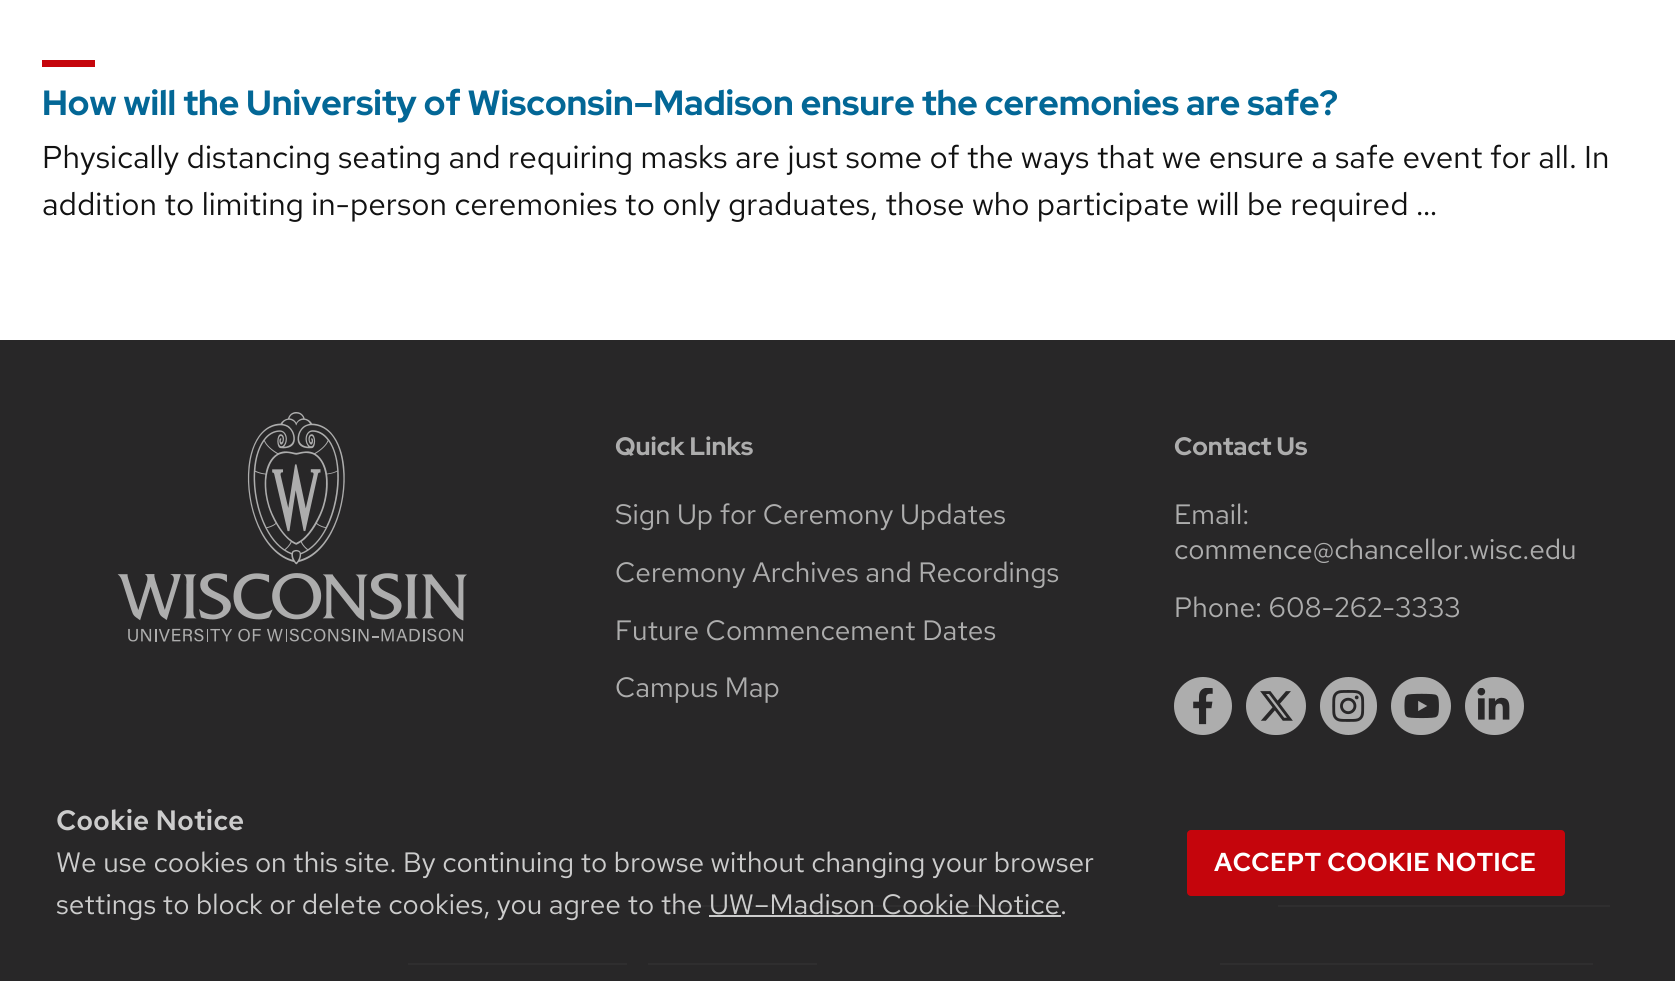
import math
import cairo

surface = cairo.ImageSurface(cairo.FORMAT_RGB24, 1675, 981)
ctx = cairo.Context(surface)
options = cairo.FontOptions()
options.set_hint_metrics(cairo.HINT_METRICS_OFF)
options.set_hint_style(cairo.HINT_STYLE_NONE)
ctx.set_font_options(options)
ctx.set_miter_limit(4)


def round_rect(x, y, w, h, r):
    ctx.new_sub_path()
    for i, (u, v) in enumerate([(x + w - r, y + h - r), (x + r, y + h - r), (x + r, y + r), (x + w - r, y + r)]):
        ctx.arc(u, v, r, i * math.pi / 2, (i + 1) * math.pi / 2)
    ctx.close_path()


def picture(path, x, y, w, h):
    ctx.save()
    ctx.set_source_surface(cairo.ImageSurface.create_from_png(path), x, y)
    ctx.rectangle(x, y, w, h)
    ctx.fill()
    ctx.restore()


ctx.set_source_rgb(1, 1, 1)
ctx.paint()
ctx.set_source_rgb(0.773, 0.02, 0.047)
ctx.rectangle(42, 60, 53, 7)
ctx.fill()
ctx.select_font_face("Red Hat Display", cairo.FONT_SLANT_NORMAL, cairo.FONT_WEIGHT_BOLD)
ctx.set_font_size(35)
ctx.set_source_rgb(0.012, 0.404, 0.588)
ctx.move_to(42, 115)
ctx.show_text("How will the University of Wisconsin–Madison ensure the ceremonies are safe?")
ctx.select_font_face("Red Hat Text")
ctx.set_font_size(31.5)
ctx.set_source_rgb(0.071, 0.071, 0.071)
ctx.move_to(42, 168)
ctx.show_text("Physically distancing seating and requiring masks are just some of the ways that we ensure a safe event for all. In")
ctx.move_to(42, 215)
ctx.show_text("addition to limiting in-person ceremonies to only graduates, those who participate will be required …")
ctx.set_source_rgb(0.157, 0.153, 0.157)
ctx.rectangle(0, 340, 1675, 641)
ctx.fill()
picture("img1.png", 117, 412, 350, 230)
ctx.select_font_face("Red Hat Display", cairo.FONT_SLANT_NORMAL, cairo.FONT_WEIGHT_BOLD)
ctx.set_font_size(25.25)
ctx.set_source_rgb(0.678, 0.678, 0.678)
ctx.move_to(615, 455)
ctx.show_text("Quick Links")
ctx.select_font_face("Red Hat Text")
ctx.set_font_size(28)
ctx.move_to(615, 524)
ctx.show_text("Sign Up for Ceremony Updates")
ctx.move_to(615, 582)
ctx.show_text("Ceremony Archives and Recordings")
ctx.move_to(615, 640)
ctx.show_text("Future Commencement Dates")
ctx.move_to(615, 697)
ctx.show_text("Campus Map")
ctx.select_font_face("Red Hat Display", cairo.FONT_SLANT_NORMAL, cairo.FONT_WEIGHT_BOLD)
ctx.set_font_size(25.25)
ctx.move_to(1174, 455)
ctx.show_text("Contact Us")
ctx.select_font_face("Red Hat Text")
ctx.set_font_size(28)
ctx.move_to(1174, 524)
ctx.show_text("Email:")
ctx.move_to(1174, 559)
ctx.show_text("commence@chancellor.wisc.edu")
ctx.move_to(1174, 617)
ctx.show_text("Phone: 608-262-3333")
ctx.new_path()
ctx.arc(1203, 706, 29, 0, 2 * math.pi)
ctx.fill()
picture("img2.png", 1193, 688, 20, 37)
round_rect(1246, 677, 60, 58, 29)
ctx.fill()
picture("img3.png", 1260, 691, 33, 30)
round_rect(1320, 677, 57, 58, 28.5)
ctx.fill()
picture("img4.png", 1332, 690, 33, 32)
round_rect(1391, 677, 60, 58, 29)
ctx.fill()
picture("img5.png", 1404, 693, 35, 26)
round_rect(1465, 677, 59, 58, 29)
ctx.fill()
picture("img6.png", 1477, 688, 33, 32)
ctx.set_source_rgb(0.184, 0.18, 0.184)
ctx.rectangle(663, 905, 378, 2)
ctx.fill()
ctx.rectangle(1278, 905, 332, 2)
ctx.fill()
ctx.rectangle(408, 963, 219, 2)
ctx.fill()
ctx.rectangle(648, 963, 169, 2)
ctx.fill()
ctx.rectangle(1220, 963, 373, 2)
ctx.fill()
ctx.select_font_face("Red Hat Text SemiBold")
ctx.set_source_rgb(0.8, 0.8, 0.8)
ctx.move_to(56, 830)
ctx.show_text("Cookie Notice")
ctx.select_font_face("Red Hat Text")
ctx.move_to(56, 872)
ctx.show_text("We use cookies on this site. By continuing to browse without changing your browser")
ctx.move_to(56, 914)
ctx.show_text("settings to block or delete cookies, you agree to the UW–Madison Cookie Notice.")
ctx.rectangle(709, 915, 352, 2)
ctx.fill()
ctx.set_source_rgb(0.773, 0.02, 0.047)
round_rect(1187, 830, 378, 66, 4)
ctx.fill()
ctx.select_font_face("Red Hat Text SemiBold")
ctx.set_font_size(25.9)
ctx.set_source_rgb(1, 1, 1)
ctx.move_to(1214, 871)
ctx.show_text("ACCEPT COOKIE NOTICE")
surface.write_to_png("page.png")
